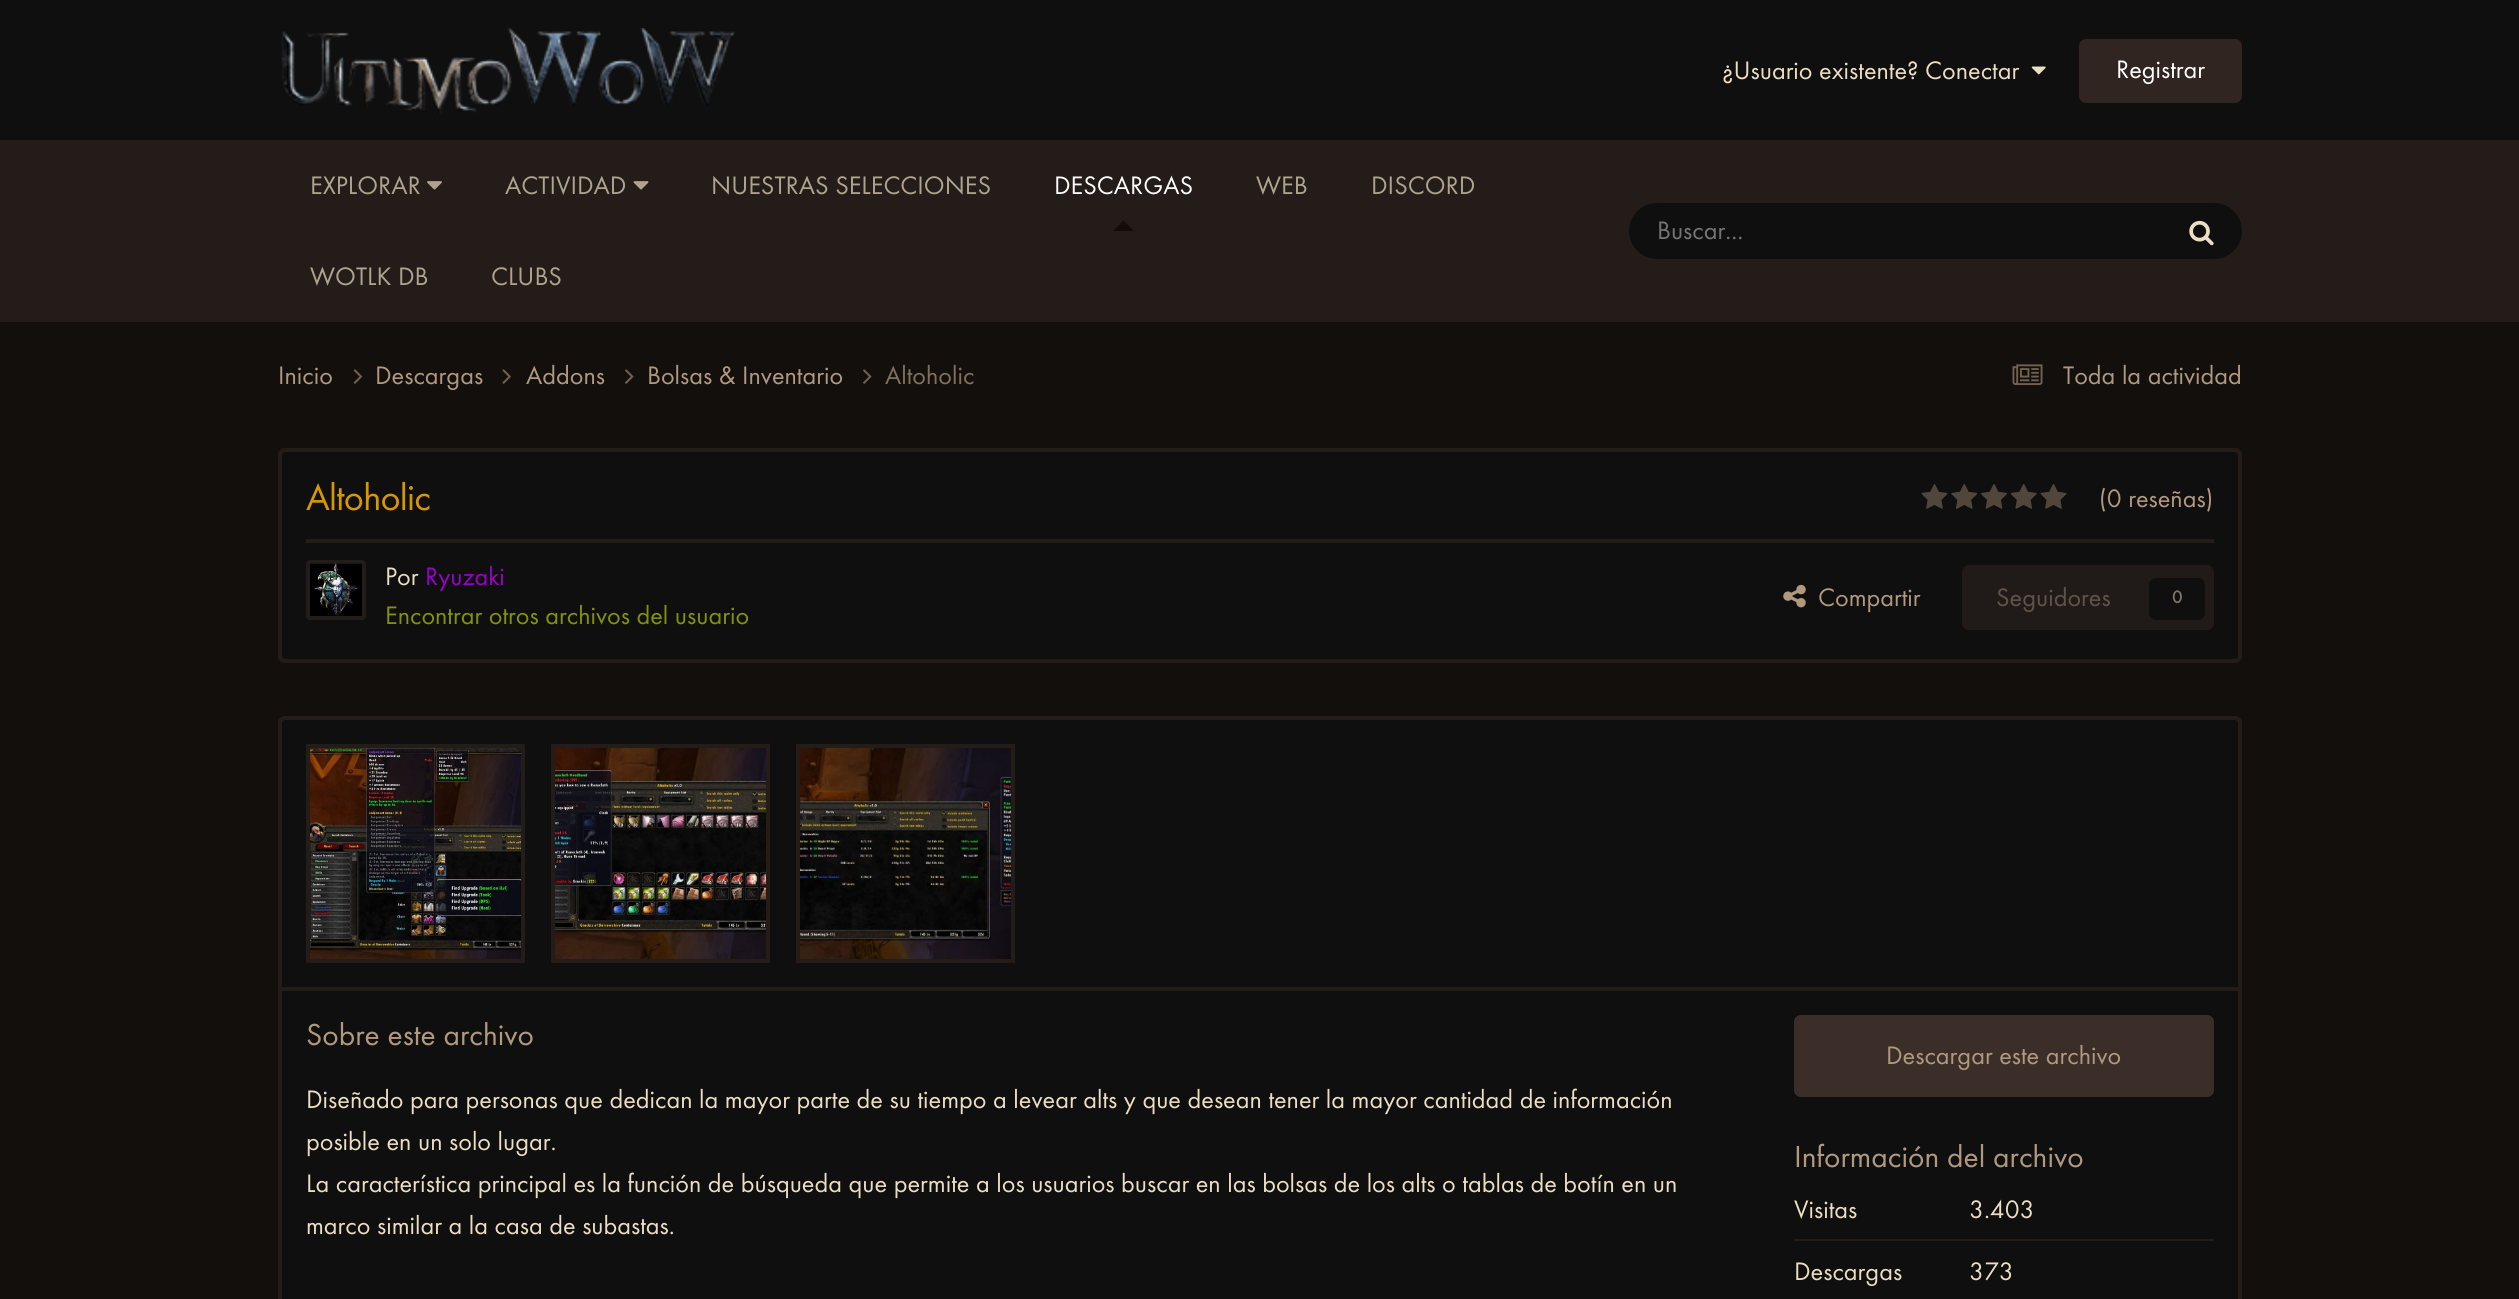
import math
import cairo

surface = cairo.ImageSurface(cairo.FORMAT_RGB24, 2519, 1299)
ctx = cairo.Context(surface)
options = cairo.FontOptions()
options.set_hint_metrics(cairo.HINT_METRICS_OFF)
options.set_hint_style(cairo.HINT_STYLE_NONE)
ctx.set_font_options(options)
ctx.set_miter_limit(4)


def spaced_text(x, y, s, letter, word):
    ctx.move_to(x, y)
    for ch in s:
        ctx.show_text(ch)
        ctx.rel_move_to(letter + word * (ch == ' '), 0)


def round_rect(x, y, w, h, r):
    ctx.new_sub_path()
    for i, (u, v) in enumerate([(x + w - r, y + h - r), (x + r, y + h - r), (x + r, y + r), (x + w - r, y + r)]):
        ctx.arc(u, v, r, i * math.pi / 2, (i + 1) * math.pi / 2)
    ctx.close_path()


def picture(path, x, y, w, h):
    ctx.save()
    ctx.set_source_surface(cairo.ImageSurface.create_from_png(path), x, y)
    ctx.rectangle(x, y, w, h)
    ctx.fill()
    ctx.restore()


ctx.set_source_rgb(0.075, 0.059, 0.051)
ctx.paint()
ctx.set_source_rgb(0.059, 0.059, 0.059)
ctx.rectangle(0, 0, 2519, 140)
ctx.fill()
picture("img1.png", 281, 28, 454, 86)
ctx.select_font_face("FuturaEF")
ctx.set_font_size(26.25)
ctx.set_source_rgb(0.922, 0.871, 0.761)
ctx.move_to(1722, 79)
ctx.show_text("¿Usuario existente? Conectar")
picture("img2.png", 2031, 66, 15, 9)
ctx.set_source_rgb(0.188, 0.145, 0.129)
round_rect(2079, 39, 163, 64, 7)
ctx.fill()
ctx.set_source_rgb(1, 1, 1)
ctx.move_to(2116, 78)
ctx.show_text("Registrar")
ctx.set_source_rgb(0.141, 0.11, 0.098)
ctx.rectangle(0, 140, 2519, 182)
ctx.fill()
ctx.set_source_rgb(0.686, 0.643, 0.561)
ctx.move_to(310, 194)
ctx.show_text("EXPLORAR")
picture("img3.png", 427, 181, 15, 9)
ctx.move_to(505, 194)
ctx.show_text("ACTIVIDAD")
picture("img4.png", 633, 181, 16, 9)
ctx.move_to(711, 194)
ctx.show_text("NUESTRAS SELECCIONES")
ctx.set_source_rgb(1, 1, 1)
ctx.move_to(1054, 194)
ctx.show_text("DESCARGAS")
ctx.set_source_rgb(0.075, 0.047, 0.035)
ctx.new_path()
ctx.move_to(1134, 231)
ctx.line_to(1113, 231)
ctx.line_to(1123.5, 220.5)
ctx.close_path()
ctx.fill()
ctx.set_source_rgb(0.686, 0.643, 0.561)
ctx.move_to(1256, 194)
ctx.show_text("WEB")
ctx.move_to(1371, 194)
ctx.show_text("DISCORD")
ctx.move_to(310, 285)
ctx.show_text("WOTLK DB")
ctx.move_to(491, 285)
ctx.show_text("CLUBS")
ctx.set_source_rgb(0.059, 0.059, 0.059)
round_rect(1629, 203, 613, 56, 28)
ctx.fill()
ctx.set_source_rgb(0.459, 0.459, 0.459)
ctx.move_to(1657, 239)
ctx.show_text("Buscar...")
picture("img5.png", 2189, 220, 25, 26)
ctx.set_source_rgb(0.694, 0.6, 0.498)
ctx.move_to(278, 384)
ctx.show_text("Inicio")
picture("img6.png", 353, 369, 10, 15)
ctx.move_to(375, 384)
ctx.show_text("Descargas")
picture("img7.png", 502, 369, 9, 15)
ctx.move_to(526, 384)
ctx.show_text("Addons")
picture("img8.png", 625, 369, 9, 15)
ctx.move_to(647, 384)
ctx.show_text("Bolsas & Inventario")
picture("img8.png", 863, 369, 9, 15)
ctx.set_source_rgb(0.51, 0.439, 0.365)
ctx.move_to(885, 384)
ctx.show_text("Altoholic")
picture("img9.png", 2012, 364, 31, 21)
ctx.set_source_rgb(0.694, 0.6, 0.498)
ctx.move_to(2063, 384)
ctx.show_text("Toda la actividad")
ctx.set_source_rgb(0.059, 0.059, 0.059)
round_rect(280, 450, 1960, 211, 5)
ctx.fill_preserve()
ctx.set_source_rgb(0.141, 0.11, 0.098)
ctx.set_line_width(4)
ctx.stroke()
ctx.set_font_size(38.5)
ctx.set_source_rgb(0.843, 0.588, 0.008)
spaced_text(306, 510, "Altoholic", -0.75, 0)
picture("img10.png", 1921, 484, 27, 25)
picture("img11.png", 1951, 484, 27, 25)
picture("img12.png", 1981, 484, 26, 25)
picture("img13.png", 2010, 484, 27, 25)
picture("img10.png", 2040, 484, 27, 25)
ctx.set_font_size(26.25)
ctx.set_source_rgb(0.694, 0.6, 0.498)
ctx.move_to(2099, 507)
ctx.show_text("(0 reseñas)")
ctx.set_source_rgb(0.141, 0.11, 0.098)
ctx.rectangle(306, 539, 1908, 4)
ctx.fill()
round_rect(308, 562, 56, 56, 2)
ctx.stroke()
picture("img14.png", 310, 563, 52, 53)
ctx.set_source_rgb(0.922, 0.871, 0.761)
ctx.move_to(385, 585)
ctx.show_text("Por")
ctx.set_source_rgb(0.6, 0, 0.8)
ctx.move_to(425, 585)
ctx.show_text("Ryuzaki")
ctx.set_source_rgb(0.514, 0.576, 0.035)
ctx.move_to(385, 624)
ctx.show_text("Encontrar otros archivos del usuario")
picture("img15.png", 1783, 584, 23, 24)
ctx.set_source_rgb(0.694, 0.6, 0.498)
ctx.move_to(1818, 606)
ctx.show_text("Compartir")
ctx.set_source_rgb(0.125, 0.102, 0.094)
round_rect(1962, 565, 252, 65, 7)
ctx.fill()
ctx.set_source_rgb(0.376, 0.329, 0.278)
ctx.move_to(1996, 606)
ctx.show_text("Seguidores")
ctx.set_source_rgb(0.059, 0.059, 0.059)
round_rect(2149, 578, 56, 42, 7)
ctx.fill()
ctx.select_font_face("FuturaEF", cairo.FONT_SLANT_NORMAL, cairo.FONT_WEIGHT_BOLD)
ctx.set_font_size(18)
ctx.set_source_rgb(0.49, 0.467, 0.412)
ctx.move_to(2172, 603)
ctx.show_text("0")
ctx.set_source_rgb(0.059, 0.059, 0.059)
round_rect(280, 718, 1960, 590, 5)
ctx.fill_preserve()
ctx.set_source_rgb(0.141, 0.11, 0.098)
ctx.stroke()
ctx.rectangle(282, 987, 1956, 4)
ctx.fill()
picture("img16.png", 310, 748, 211, 211)
ctx.rectangle(308, 746, 215, 215)
ctx.stroke()
picture("img17.png", 555, 748, 211, 211)
ctx.rectangle(553, 746, 215, 215)
ctx.stroke()
picture("img18.png", 800, 748, 211, 211)
ctx.rectangle(798, 746, 215, 215)
ctx.stroke()
ctx.select_font_face("FuturaEF")
ctx.set_font_size(31.5)
ctx.set_source_rgb(0.694, 0.6, 0.498)
ctx.move_to(306, 1045)
ctx.show_text("Sobre este archivo")
ctx.set_font_size(26.25)
ctx.set_source_rgb(0.922, 0.871, 0.761)
ctx.move_to(306, 1108)
ctx.show_text("Diseñado para personas que dedican la mayor parte de su tiempo a levear alts y que desean tener la mayor cantidad de información")
ctx.move_to(306, 1150)
ctx.show_text("posible en un solo lugar.")
ctx.move_to(306, 1192)
ctx.show_text("La característica principal es la función de búsqueda que permite a los usuarios buscar en las bolsas de los alts o tablas de botín en un")
ctx.move_to(306, 1234)
ctx.show_text("marco similar a la casa de subastas.")
ctx.set_source_rgb(0.231, 0.18, 0.161)
round_rect(1794, 1015, 420, 82, 7)
ctx.fill()
ctx.set_source_rgb(0.694, 0.6, 0.498)
ctx.move_to(1886, 1064)
ctx.show_text("Descargar este archivo")
ctx.set_font_size(31.5)
ctx.move_to(1794, 1167)
ctx.show_text("Información del archivo")
ctx.set_source_rgb(0.141, 0.11, 0.098)
ctx.rectangle(1794, 1239, 420, 2)
ctx.fill()
ctx.set_font_size(26.25)
ctx.set_source_rgb(0.922, 0.871, 0.761)
ctx.move_to(1794, 1218)
ctx.show_text("Visitas")
ctx.move_to(1969, 1218)
ctx.show_text("3.403")
ctx.move_to(1794, 1280)
ctx.show_text("Descargas")
ctx.move_to(1969, 1280)
ctx.show_text("373")
surface.write_to_png("page.png")
